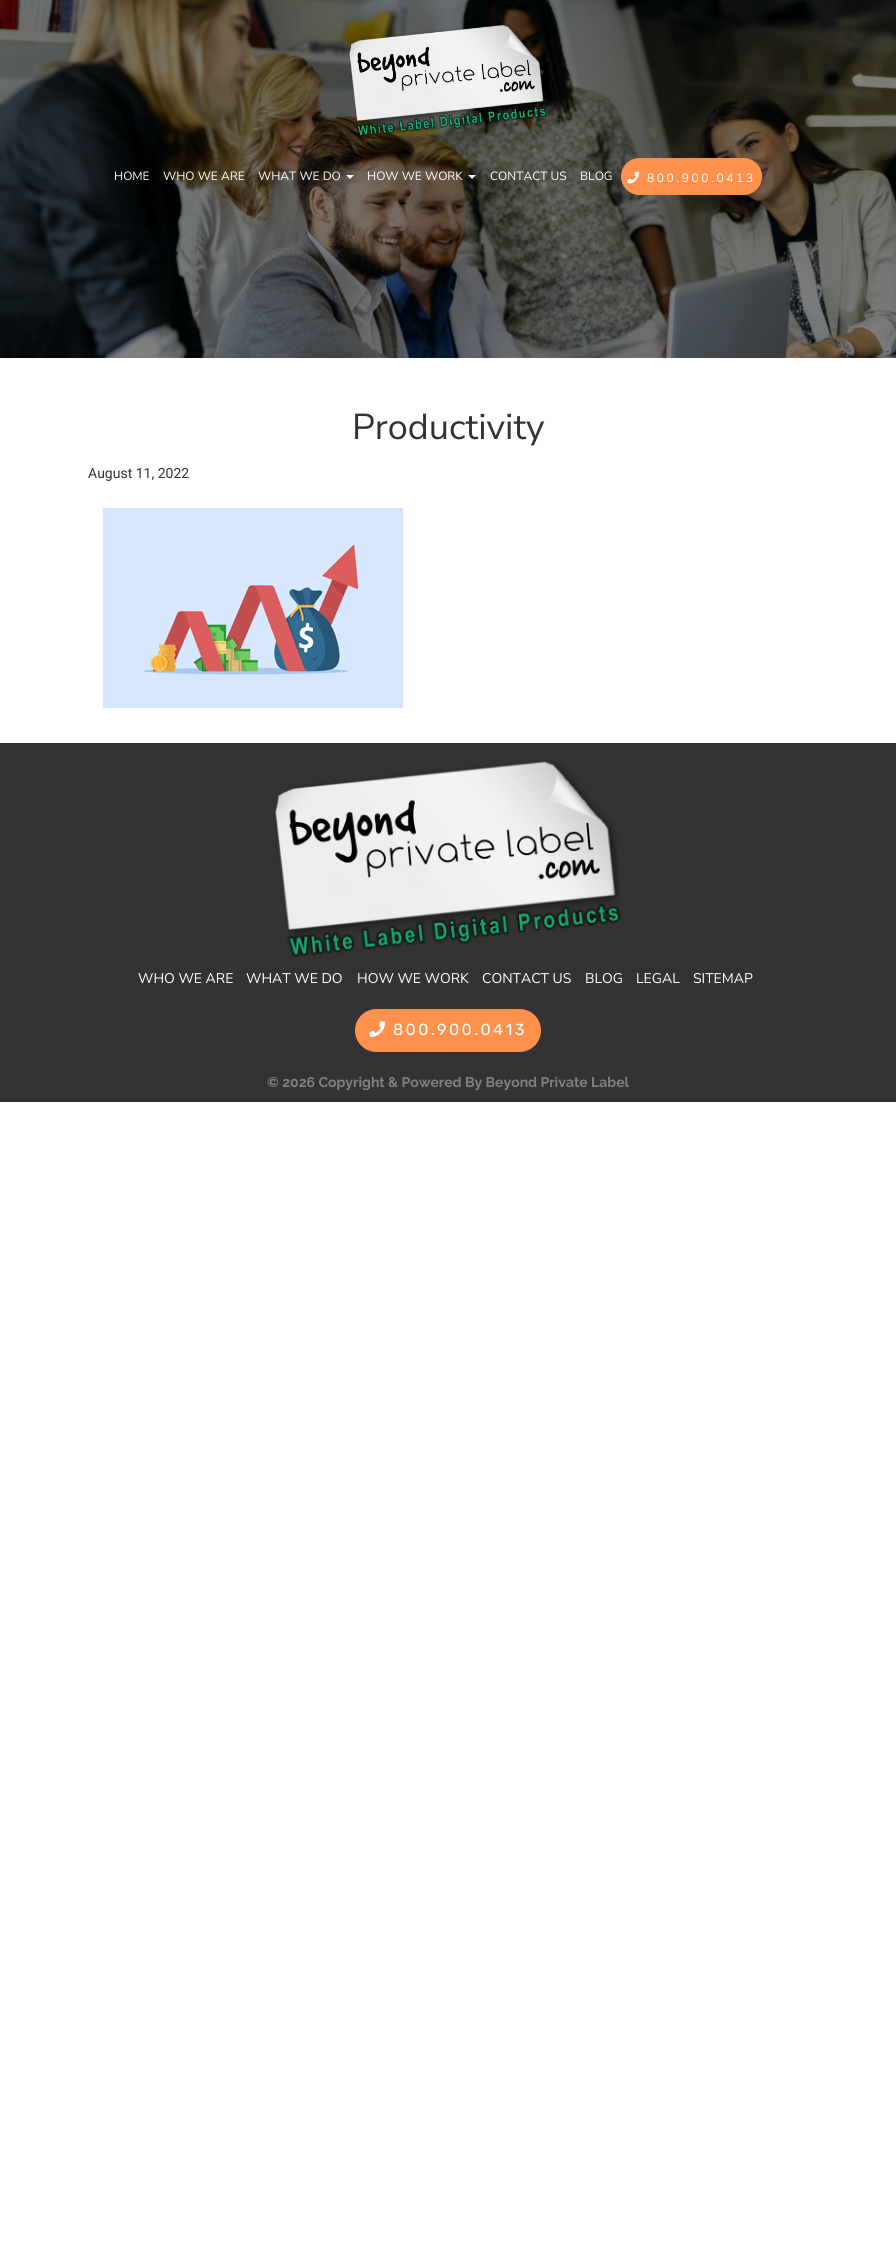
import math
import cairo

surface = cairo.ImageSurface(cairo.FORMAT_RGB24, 896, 2264)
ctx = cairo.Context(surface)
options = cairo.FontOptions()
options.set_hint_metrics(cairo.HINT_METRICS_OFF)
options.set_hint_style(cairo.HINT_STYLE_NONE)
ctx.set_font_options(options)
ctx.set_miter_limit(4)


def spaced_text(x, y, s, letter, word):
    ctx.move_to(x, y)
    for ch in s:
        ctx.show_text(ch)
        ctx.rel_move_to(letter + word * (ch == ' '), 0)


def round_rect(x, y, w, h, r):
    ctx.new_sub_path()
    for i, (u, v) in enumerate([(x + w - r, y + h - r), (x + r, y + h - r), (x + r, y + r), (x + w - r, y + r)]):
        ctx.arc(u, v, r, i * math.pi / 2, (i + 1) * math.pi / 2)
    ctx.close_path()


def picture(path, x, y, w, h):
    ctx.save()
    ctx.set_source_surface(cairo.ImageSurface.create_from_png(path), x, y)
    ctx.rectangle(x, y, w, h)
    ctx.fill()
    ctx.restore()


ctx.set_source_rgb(1, 1, 1)
ctx.paint()
picture("img1.png", 0, 0, 896, 358)
picture("img2.png", 349, 24, 198, 112)
ctx.select_font_face("Nunito Sans ExtraLight")
ctx.set_font_size(12)
ctx.set_source_rgb(1, 1, 1)
ctx.move_to(114, 180)
ctx.show_text("HOME")
ctx.move_to(163, 180)
ctx.show_text("WHO WE ARE")
ctx.move_to(258, 180)
ctx.show_text("WHAT WE DO")
ctx.new_path()
ctx.move_to(346, 175)
ctx.line_to(354, 175)
ctx.line_to(350, 179)
ctx.close_path()
ctx.fill()
ctx.move_to(367, 180)
ctx.show_text("HOW WE WORK")
ctx.new_path()
ctx.move_to(468, 175)
ctx.line_to(476, 175)
ctx.line_to(472, 179)
ctx.close_path()
ctx.fill()
ctx.move_to(490, 180)
ctx.show_text("CONTACT US")
ctx.move_to(580, 180)
ctx.show_text("BLOG")
ctx.set_source_rgb(1, 0.569, 0.302)
round_rect(621.5, 158.5, 140, 36, 18)
ctx.fill_preserve()
ctx.set_line_width(1)
ctx.stroke()
picture("img3.png", 627, 171, 12, 13)
ctx.set_source_rgb(1, 1, 1)
spaced_text(647, 182, "800.900.0413", 2.6, 0)
ctx.set_font_size(36)
ctx.set_source_rgb(0.2, 0.2, 0.2)
ctx.move_to(352, 439)
ctx.show_text("Productivity")
ctx.select_font_face("Roboto")
ctx.set_font_size(14)
ctx.move_to(88, 478)
ctx.show_text("August 11, 2022")
picture("img4.png", 103, 508, 300, 200)
ctx.rectangle(0, 743, 896, 359)
ctx.fill()
picture("img5.png", 275, 760, 346, 197)
ctx.select_font_face("Nunito Sans ExtraLight")
ctx.set_source_rgb(1, 1, 1)
ctx.move_to(138, 983)
ctx.show_text("WHO WE ARE")
ctx.move_to(246, 983)
ctx.show_text("WHAT WE DO")
ctx.move_to(357, 983)
ctx.show_text("HOW WE WORK")
ctx.move_to(482, 983)
ctx.show_text("CONTACT US")
ctx.move_to(585, 983)
ctx.show_text("BLOG")
ctx.move_to(636, 983)
ctx.show_text("LEGAL")
ctx.move_to(693, 983)
ctx.show_text("SITEMAP")
ctx.set_source_rgb(1, 0.569, 0.302)
round_rect(355.5, 1009.5, 185, 42, 21)
ctx.fill_preserve()
ctx.stroke()
picture("img6.png", 369, 1021, 16, 16)
ctx.select_font_face("Rubik Light")
ctx.set_font_size(16)
ctx.set_source_rgb(1, 1, 1)
spaced_text(393, 1035, "800.900.0413", 2.4, 0)
ctx.select_font_face("Raleway", cairo.FONT_SLANT_NORMAL, cairo.FONT_WEIGHT_BOLD)
ctx.set_font_size(14)
ctx.set_source_rgb(0.51, 0.498, 0.498)
ctx.move_to(267, 1087)
ctx.show_text("© 2026 Copyright & Powered By Beyond Private Label")
surface.write_to_png("page.png")
